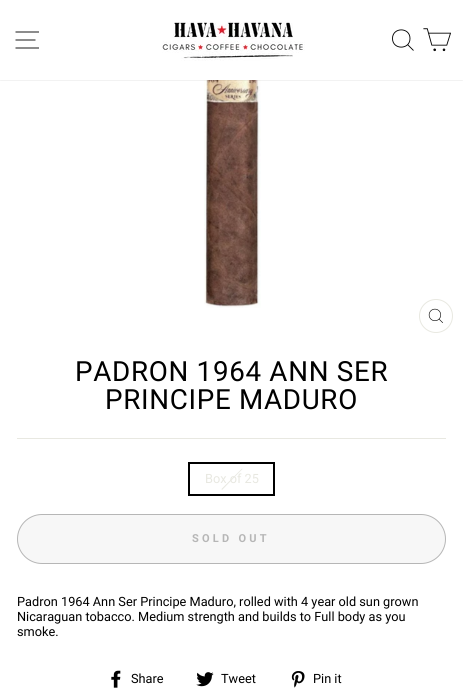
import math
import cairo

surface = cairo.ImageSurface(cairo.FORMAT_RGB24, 463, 691)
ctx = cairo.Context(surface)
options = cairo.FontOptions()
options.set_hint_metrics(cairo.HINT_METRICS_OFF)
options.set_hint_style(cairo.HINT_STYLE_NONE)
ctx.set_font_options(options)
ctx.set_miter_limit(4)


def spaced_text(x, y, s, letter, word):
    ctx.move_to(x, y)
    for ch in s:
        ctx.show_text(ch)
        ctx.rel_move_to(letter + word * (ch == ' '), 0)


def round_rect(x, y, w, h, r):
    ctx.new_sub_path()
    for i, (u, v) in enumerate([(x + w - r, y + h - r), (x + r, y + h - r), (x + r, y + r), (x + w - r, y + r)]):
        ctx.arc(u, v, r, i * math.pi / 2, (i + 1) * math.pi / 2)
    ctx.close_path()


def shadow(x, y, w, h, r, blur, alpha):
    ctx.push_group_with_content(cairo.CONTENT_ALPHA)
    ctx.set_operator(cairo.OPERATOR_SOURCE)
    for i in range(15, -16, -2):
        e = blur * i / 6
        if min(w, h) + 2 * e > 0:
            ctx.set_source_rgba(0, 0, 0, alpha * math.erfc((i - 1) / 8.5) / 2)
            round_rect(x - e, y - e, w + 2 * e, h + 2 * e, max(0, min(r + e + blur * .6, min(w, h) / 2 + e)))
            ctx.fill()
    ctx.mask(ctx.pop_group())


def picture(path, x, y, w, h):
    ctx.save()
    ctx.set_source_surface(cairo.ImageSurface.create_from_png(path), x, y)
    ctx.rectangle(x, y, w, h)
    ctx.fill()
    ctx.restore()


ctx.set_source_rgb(1, 1, 1)
ctx.paint()
picture("img3.png", 204, 80, 57, 228)
ctx.set_source_rgb(0, 0, 0)
shadow(0, 0, 463, 80, 0, 0.5, 0.2)
ctx.set_source_rgb(1, 1, 1)
ctx.rectangle(0, 0, 463, 80)
ctx.fill()
ctx.new_path()
ctx.move_to(15.5, 32)
ctx.line_to(39, 32)
ctx.move_to(15.5, 40)
ctx.line_to(35.5, 40)
ctx.move_to(15.5, 48)
ctx.line_to(39, 48)
ctx.set_source_rgb(0, 0, 0)
ctx.set_line_width(0.9)
ctx.stroke()
picture("img1.png", 162, 21, 143, 40)
ctx.new_path()
ctx.move_to(410, 38.5)
ctx.curve_to(410, 50, 392.5, 50, 392.5, 38.5)
ctx.curve_to(392.5, 27, 410, 27, 410, 38.5)
ctx.close_path()
ctx.move_to(413.5, 50.5)
ctx.line_to(407.5, 44.5)
ctx.stroke()
picture("img2.png", 423, 28, 28, 24)
ctx.arc(436, 316, 16.5, 0, 2 * math.pi)
ctx.set_source_rgb(0.91, 0.91, 0.882)
ctx.set_line_width(1)
ctx.stroke()
picture("img4.png", 428, 308, 15, 15)
ctx.select_font_face("Roboto")
ctx.set_font_size(27.75)
ctx.set_source_rgb(0, 0, 0)
spaced_text(75, 381, "PADRON 1964 ANN SER", 0.7, 0)
spaced_text(105, 409, "PRINCIPE MADURO", 0.7, 0)
ctx.set_source_rgb(0.91, 0.91, 0.882)
ctx.rectangle(17, 438, 429, 1)
ctx.fill()
ctx.rectangle(189, 463, 85, 32)
ctx.set_source_rgb(0, 0, 0)
ctx.set_line_width(2)
ctx.stroke()
ctx.set_source_rgb(0.91, 0.91, 0.882)
ctx.new_path()
ctx.move_to(242, 468.5)
ctx.line_to(242.5, 469)
ctx.line_to(222, 490)
ctx.line_to(221.5, 489)
ctx.close_path()
ctx.fill()
ctx.set_font_size(12.75)
ctx.move_to(205, 483)
ctx.show_text("Box of 25")
ctx.set_source_rgb(0.965, 0.965, 0.965)
round_rect(17.5, 514.5, 428, 49, 24.5)
ctx.fill_preserve()
ctx.set_source_rgb(0.714, 0.714, 0.714)
ctx.set_line_width(1)
ctx.stroke()
ctx.select_font_face("Roboto", cairo.FONT_SLANT_NORMAL, cairo.FONT_WEIGHT_BOLD)
ctx.set_font_size(11)
spaced_text(192, 542, "SOLD OUT", 3.25, 0)
ctx.select_font_face("Roboto")
ctx.set_font_size(12.75)
ctx.set_source_rgb(0, 0, 0)
ctx.move_to(17, 606)
ctx.show_text("Padron 1964 Ann Ser Principe Maduro, rolled with 4 year old sun grown")
ctx.move_to(17, 621)
ctx.show_text("Nicaraguan tobacco. Medium strength and builds to Full body as you")
ctx.move_to(17, 636)
ctx.show_text("smoke.")
picture("img5.png", 111, 670, 10, 18)
ctx.move_to(131, 683)
ctx.show_text("Share")
picture("img6.png", 196, 672, 18, 15)
ctx.move_to(221, 683)
ctx.show_text("Tweet")
picture("img7.png", 291, 671, 14, 17)
ctx.move_to(313, 683)
ctx.show_text("Pin it")
surface.write_to_png("page.png")
